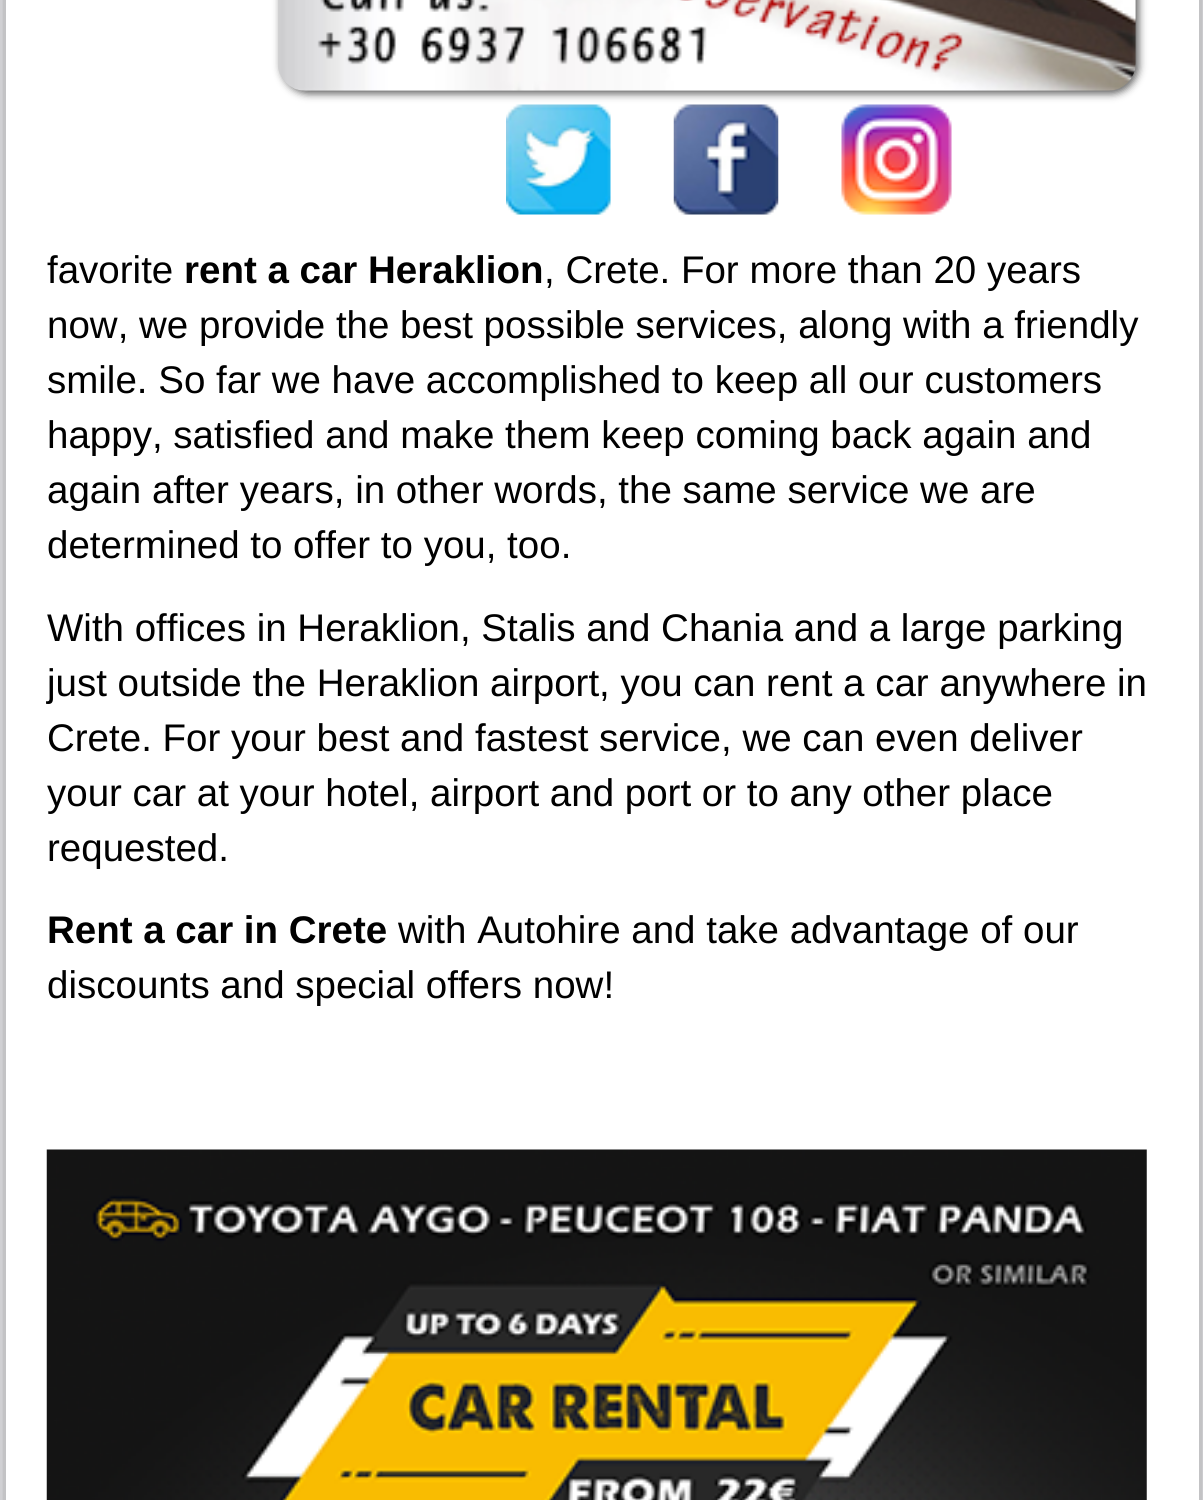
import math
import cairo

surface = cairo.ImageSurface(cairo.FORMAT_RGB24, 1203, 1500)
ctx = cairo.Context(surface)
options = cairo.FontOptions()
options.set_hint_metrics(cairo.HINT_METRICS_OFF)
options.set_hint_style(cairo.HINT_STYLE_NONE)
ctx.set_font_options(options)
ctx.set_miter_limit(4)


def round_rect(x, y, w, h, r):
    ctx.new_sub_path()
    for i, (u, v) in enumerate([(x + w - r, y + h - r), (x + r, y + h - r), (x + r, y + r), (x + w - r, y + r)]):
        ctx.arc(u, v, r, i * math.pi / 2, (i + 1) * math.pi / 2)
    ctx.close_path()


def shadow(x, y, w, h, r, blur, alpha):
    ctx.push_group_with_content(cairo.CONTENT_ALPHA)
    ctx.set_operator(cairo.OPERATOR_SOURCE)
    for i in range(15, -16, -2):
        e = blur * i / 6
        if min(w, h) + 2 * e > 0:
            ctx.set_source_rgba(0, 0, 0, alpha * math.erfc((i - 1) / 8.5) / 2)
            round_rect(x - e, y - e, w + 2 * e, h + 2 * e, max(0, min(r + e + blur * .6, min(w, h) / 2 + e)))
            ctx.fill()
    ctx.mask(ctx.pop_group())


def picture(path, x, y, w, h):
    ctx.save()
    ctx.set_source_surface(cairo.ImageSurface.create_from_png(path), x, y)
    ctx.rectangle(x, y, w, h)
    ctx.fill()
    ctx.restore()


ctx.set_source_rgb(0.973, 0.973, 0.988)
ctx.paint()
ctx.set_source_rgb(0.196, 0.196, 0.196)
shadow(6, -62, 1193, 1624, 0, 20.5, 0.55)
ctx.set_source_rgb(1, 1, 1)
ctx.rectangle(6, 0, 1193, 1500)
ctx.fill()
ctx.set_source_rgb(0.196, 0.196, 0.196)
shadow(281, -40, 858, 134, 28, 4, 0.75)
picture("img1.png", 278, 0, 858, 91)
picture("img2.png", 506, 104, 105, 111)
picture("img3.png", 673, 104, 106, 111)
picture("img4.png", 841, 104, 111, 111)
ctx.select_font_face("Liberation Sans")
ctx.set_font_size(38.5)
ctx.set_source_rgb(0, 0, 0)
ctx.move_to(47, 283)
ctx.show_text("favorite")
ctx.select_font_face("Liberation Sans", cairo.FONT_SLANT_NORMAL, cairo.FONT_WEIGHT_BOLD)
ctx.move_to(184, 283)
ctx.show_text("rent a car Heraklion")
ctx.select_font_face("Liberation Sans")
ctx.move_to(544, 283)
ctx.show_text(", Crete. For more than 20 years")
ctx.move_to(47, 338)
ctx.show_text("now, we provide the best possible services, along with a friendly")
ctx.move_to(47, 393)
ctx.show_text("smile. So far we have accomplished to keep all our customers")
ctx.move_to(47, 448)
ctx.show_text("happy, satisfied and make them keep coming back again and")
ctx.move_to(47, 503)
ctx.show_text("again after years, in other words, the same service we are")
ctx.move_to(47, 558)
ctx.show_text("determined to offer to you, too.")
ctx.move_to(47, 641)
ctx.show_text("With offices in Heraklion, Stalis and Chania and a large parking")
ctx.move_to(47, 696)
ctx.show_text("just outside the Heraklion airport, you can rent a car anywhere in")
ctx.move_to(47, 751)
ctx.show_text("Crete. For your best and fastest service, we can even deliver")
ctx.move_to(47, 806)
ctx.show_text("your car at your hotel, airport and port or to any other place")
ctx.move_to(47, 861)
ctx.show_text("requested.")
ctx.select_font_face("Liberation Sans", cairo.FONT_SLANT_NORMAL, cairo.FONT_WEIGHT_BOLD)
ctx.move_to(47, 943)
ctx.show_text("Rent a car in Crete")
ctx.select_font_face("Liberation Sans")
ctx.move_to(398, 943)
ctx.show_text("with Autohire and take advantage of our")
ctx.move_to(47, 998)
ctx.show_text("discounts and special offers now!")
picture("img5.png", 46, 1149, 1101, 351)
surface.write_to_png("page.png")
